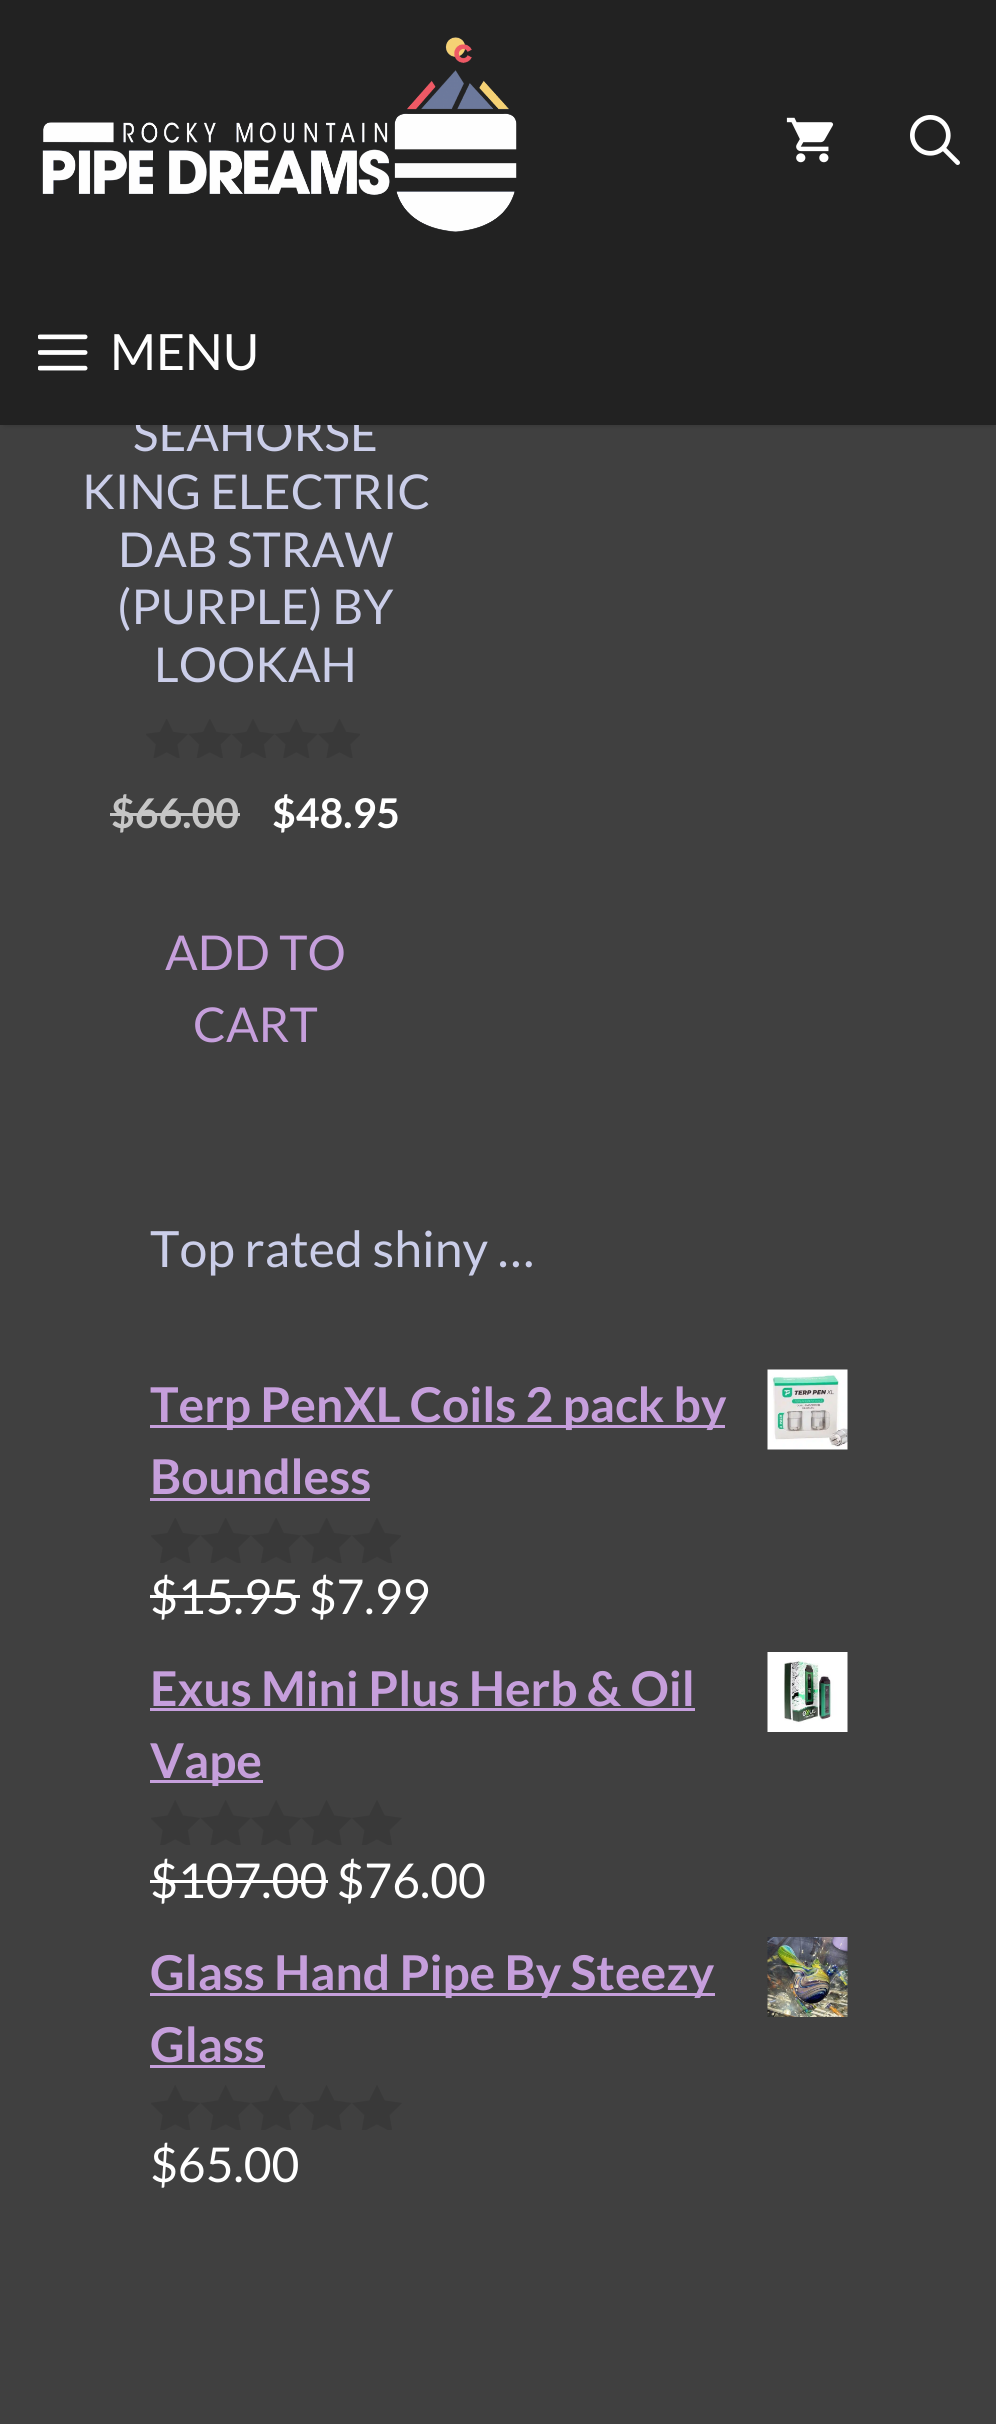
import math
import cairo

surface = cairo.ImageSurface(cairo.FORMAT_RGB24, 996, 2424)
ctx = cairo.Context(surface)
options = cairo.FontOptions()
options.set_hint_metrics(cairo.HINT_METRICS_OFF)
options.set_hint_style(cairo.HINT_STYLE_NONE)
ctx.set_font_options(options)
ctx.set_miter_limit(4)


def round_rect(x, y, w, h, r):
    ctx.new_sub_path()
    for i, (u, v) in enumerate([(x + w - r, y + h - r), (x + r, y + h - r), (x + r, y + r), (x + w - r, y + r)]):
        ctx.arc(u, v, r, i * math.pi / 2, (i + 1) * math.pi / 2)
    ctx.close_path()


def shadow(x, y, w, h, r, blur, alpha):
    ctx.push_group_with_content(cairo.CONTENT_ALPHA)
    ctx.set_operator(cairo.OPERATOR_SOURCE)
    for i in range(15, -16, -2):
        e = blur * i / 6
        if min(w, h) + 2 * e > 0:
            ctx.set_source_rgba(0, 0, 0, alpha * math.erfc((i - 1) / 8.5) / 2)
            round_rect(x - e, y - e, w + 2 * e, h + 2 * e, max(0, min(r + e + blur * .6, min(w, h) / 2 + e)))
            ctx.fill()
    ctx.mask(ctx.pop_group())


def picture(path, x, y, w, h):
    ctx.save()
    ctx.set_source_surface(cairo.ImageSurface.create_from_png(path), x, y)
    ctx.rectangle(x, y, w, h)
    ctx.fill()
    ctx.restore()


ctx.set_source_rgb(0.251, 0.251, 0.251)
ctx.paint()
ctx.set_source_rgb(0, 0, 0)
shadow(5, 10, 988, 415, 0, 2.5, 0.2)
ctx.select_font_face("Lato")
ctx.set_font_size(48)
ctx.set_source_rgb(0.796, 0.808, 0.914)
ctx.move_to(133, 451)
ctx.show_text("SEAHORSE")
ctx.set_source_rgb(0.133, 0.133, 0.133)
ctx.rectangle(0, 0, 996, 425)
ctx.fill()
picture("img1.png", 42, 37, 475, 195)
picture("img2.png", 786, 117, 48, 46)
picture("img3.png", 910, 115, 50, 50)
picture("img4.png", 38, 334, 50, 37)
ctx.set_font_size(50)
ctx.set_source_rgb(1, 1, 1)
ctx.move_to(110, 370)
ctx.show_text("MENU")
ctx.set_font_size(48)
ctx.set_source_rgb(0.796, 0.808, 0.914)
ctx.move_to(82, 509)
ctx.show_text("KING ELECTRIC")
ctx.move_to(118, 567)
ctx.show_text("DAB STRAW")
ctx.move_to(117, 624)
ctx.show_text("(PURPLE) BY")
ctx.move_to(154, 682)
ctx.show_text("LOOKAH")
picture("img5.png", 146, 719, 214, 39)
ctx.select_font_face("Lato", cairo.FONT_SLANT_NORMAL, cairo.FONT_WEIGHT_BOLD)
ctx.set_font_size(41)
ctx.set_source_rgb(0.776, 0.776, 0.776)
ctx.move_to(111, 828)
ctx.show_text("$66.00")
ctx.rectangle(110, 813, 130, 3)
ctx.fill()
ctx.set_source_rgb(1, 1, 1)
ctx.move_to(272, 828)
ctx.show_text("$48.95")
ctx.select_font_face("Lato")
ctx.set_font_size(48)
ctx.set_source_rgb(0.776, 0.624, 0.863)
ctx.move_to(165, 970)
ctx.show_text("ADD TO")
ctx.move_to(193, 1042)
ctx.show_text("CART")
ctx.set_font_size(50)
ctx.set_source_rgb(0.796, 0.808, 0.914)
ctx.move_to(150, 1267)
ctx.show_text("Top rated shiny …")
ctx.set_source_rgb(0.776, 0.624, 0.863)
ctx.rectangle(150, 1425, 575, 3)
ctx.fill()
ctx.select_font_face("Lato", cairo.FONT_SLANT_NORMAL, cairo.FONT_WEIGHT_BOLD)
ctx.set_font_size(48)
ctx.move_to(150, 1422)
ctx.show_text("Terp PenXL Coils 2 pack by")
picture("img6.png", 767, 1369, 81, 81)
ctx.move_to(150, 1494)
ctx.show_text("Boundless")
ctx.rectangle(150, 1498, 220, 3)
ctx.fill()
picture("img7.png", 151, 1518, 250, 45)
ctx.select_font_face("Lato")
ctx.set_source_rgb(1, 1, 1)
ctx.move_to(150, 1614)
ctx.show_text("$15.95 $7.99")
ctx.rectangle(150, 1595, 150, 3)
ctx.fill()
ctx.select_font_face("Lato", cairo.FONT_SLANT_NORMAL, cairo.FONT_WEIGHT_BOLD)
ctx.set_source_rgb(0.776, 0.624, 0.863)
ctx.move_to(150, 1706)
ctx.show_text("Exus Mini Plus Herb & Oil")
ctx.rectangle(150, 1708, 545, 3)
ctx.fill()
picture("img8.png", 767, 1652, 81, 80)
ctx.rectangle(150, 1780, 113, 3)
ctx.fill()
ctx.move_to(150, 1778)
ctx.show_text("Vape")
picture("img9.png", 151, 1800, 251, 45)
ctx.select_font_face("Lato")
ctx.set_source_rgb(1, 1, 1)
ctx.move_to(150, 1898)
ctx.show_text("$107.00 $76.00")
ctx.rectangle(150, 1880, 178, 3)
ctx.fill()
ctx.set_source_rgb(0.776, 0.624, 0.863)
ctx.rectangle(150, 1993, 565, 3)
ctx.fill()
ctx.select_font_face("Lato", cairo.FONT_SLANT_NORMAL, cairo.FONT_WEIGHT_BOLD)
ctx.move_to(150, 1990)
ctx.show_text("Glass Hand Pipe By Steezy")
picture("img10.png", 767, 1937, 81, 80)
ctx.move_to(150, 2062)
ctx.show_text("Glass")
ctx.rectangle(150, 2065, 115, 3)
ctx.fill()
picture("img9.png", 151, 2085, 251, 45)
ctx.select_font_face("Lato")
ctx.set_source_rgb(1, 1, 1)
ctx.move_to(150, 2182)
ctx.show_text("$65.00")
surface.write_to_png("page.png")
